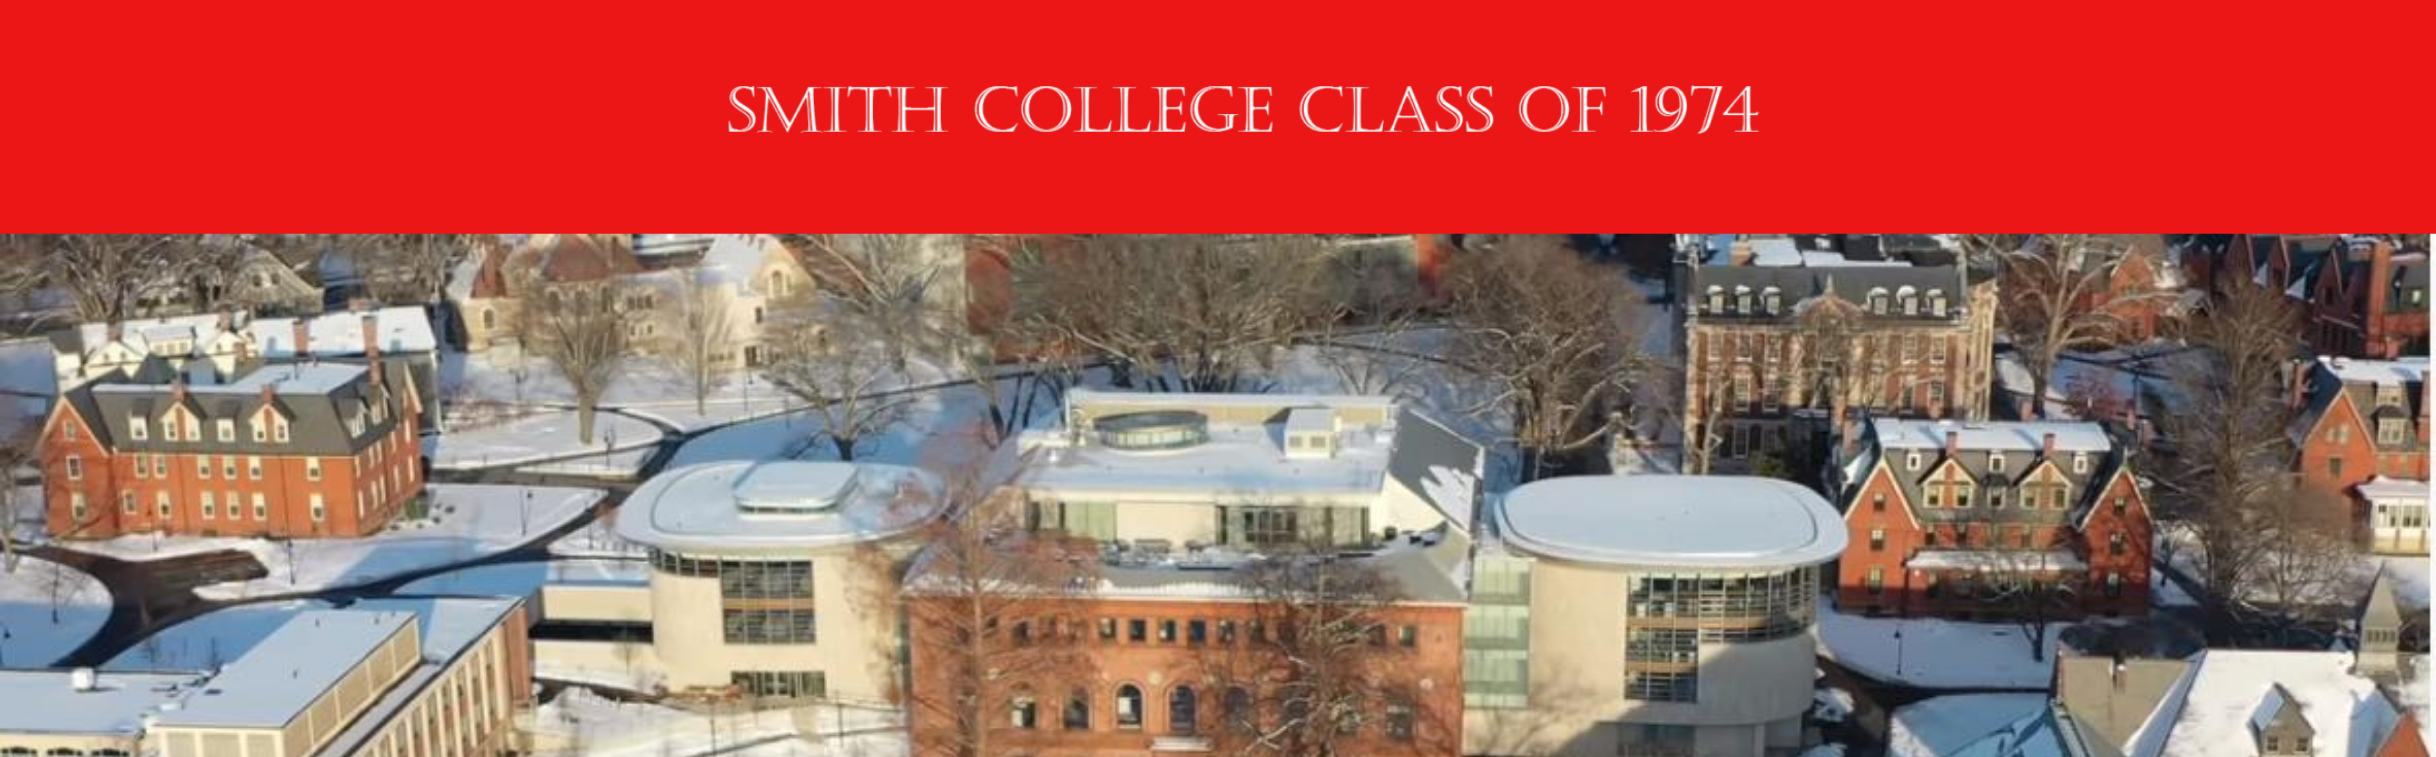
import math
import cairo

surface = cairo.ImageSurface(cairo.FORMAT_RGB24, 2436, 757)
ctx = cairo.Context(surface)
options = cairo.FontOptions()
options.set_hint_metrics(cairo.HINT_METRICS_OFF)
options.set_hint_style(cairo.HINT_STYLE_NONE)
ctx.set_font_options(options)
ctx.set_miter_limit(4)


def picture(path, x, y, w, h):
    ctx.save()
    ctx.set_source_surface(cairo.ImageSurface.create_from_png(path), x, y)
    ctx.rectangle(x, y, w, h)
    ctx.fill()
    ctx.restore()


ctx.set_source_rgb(0.922, 0.086, 0.086)
ctx.paint()
picture("img1.png", 728, 84, 1032, 51)
picture("img2.png", 0, 233, 2436, 524)
surface.write_to_png("page.png")
